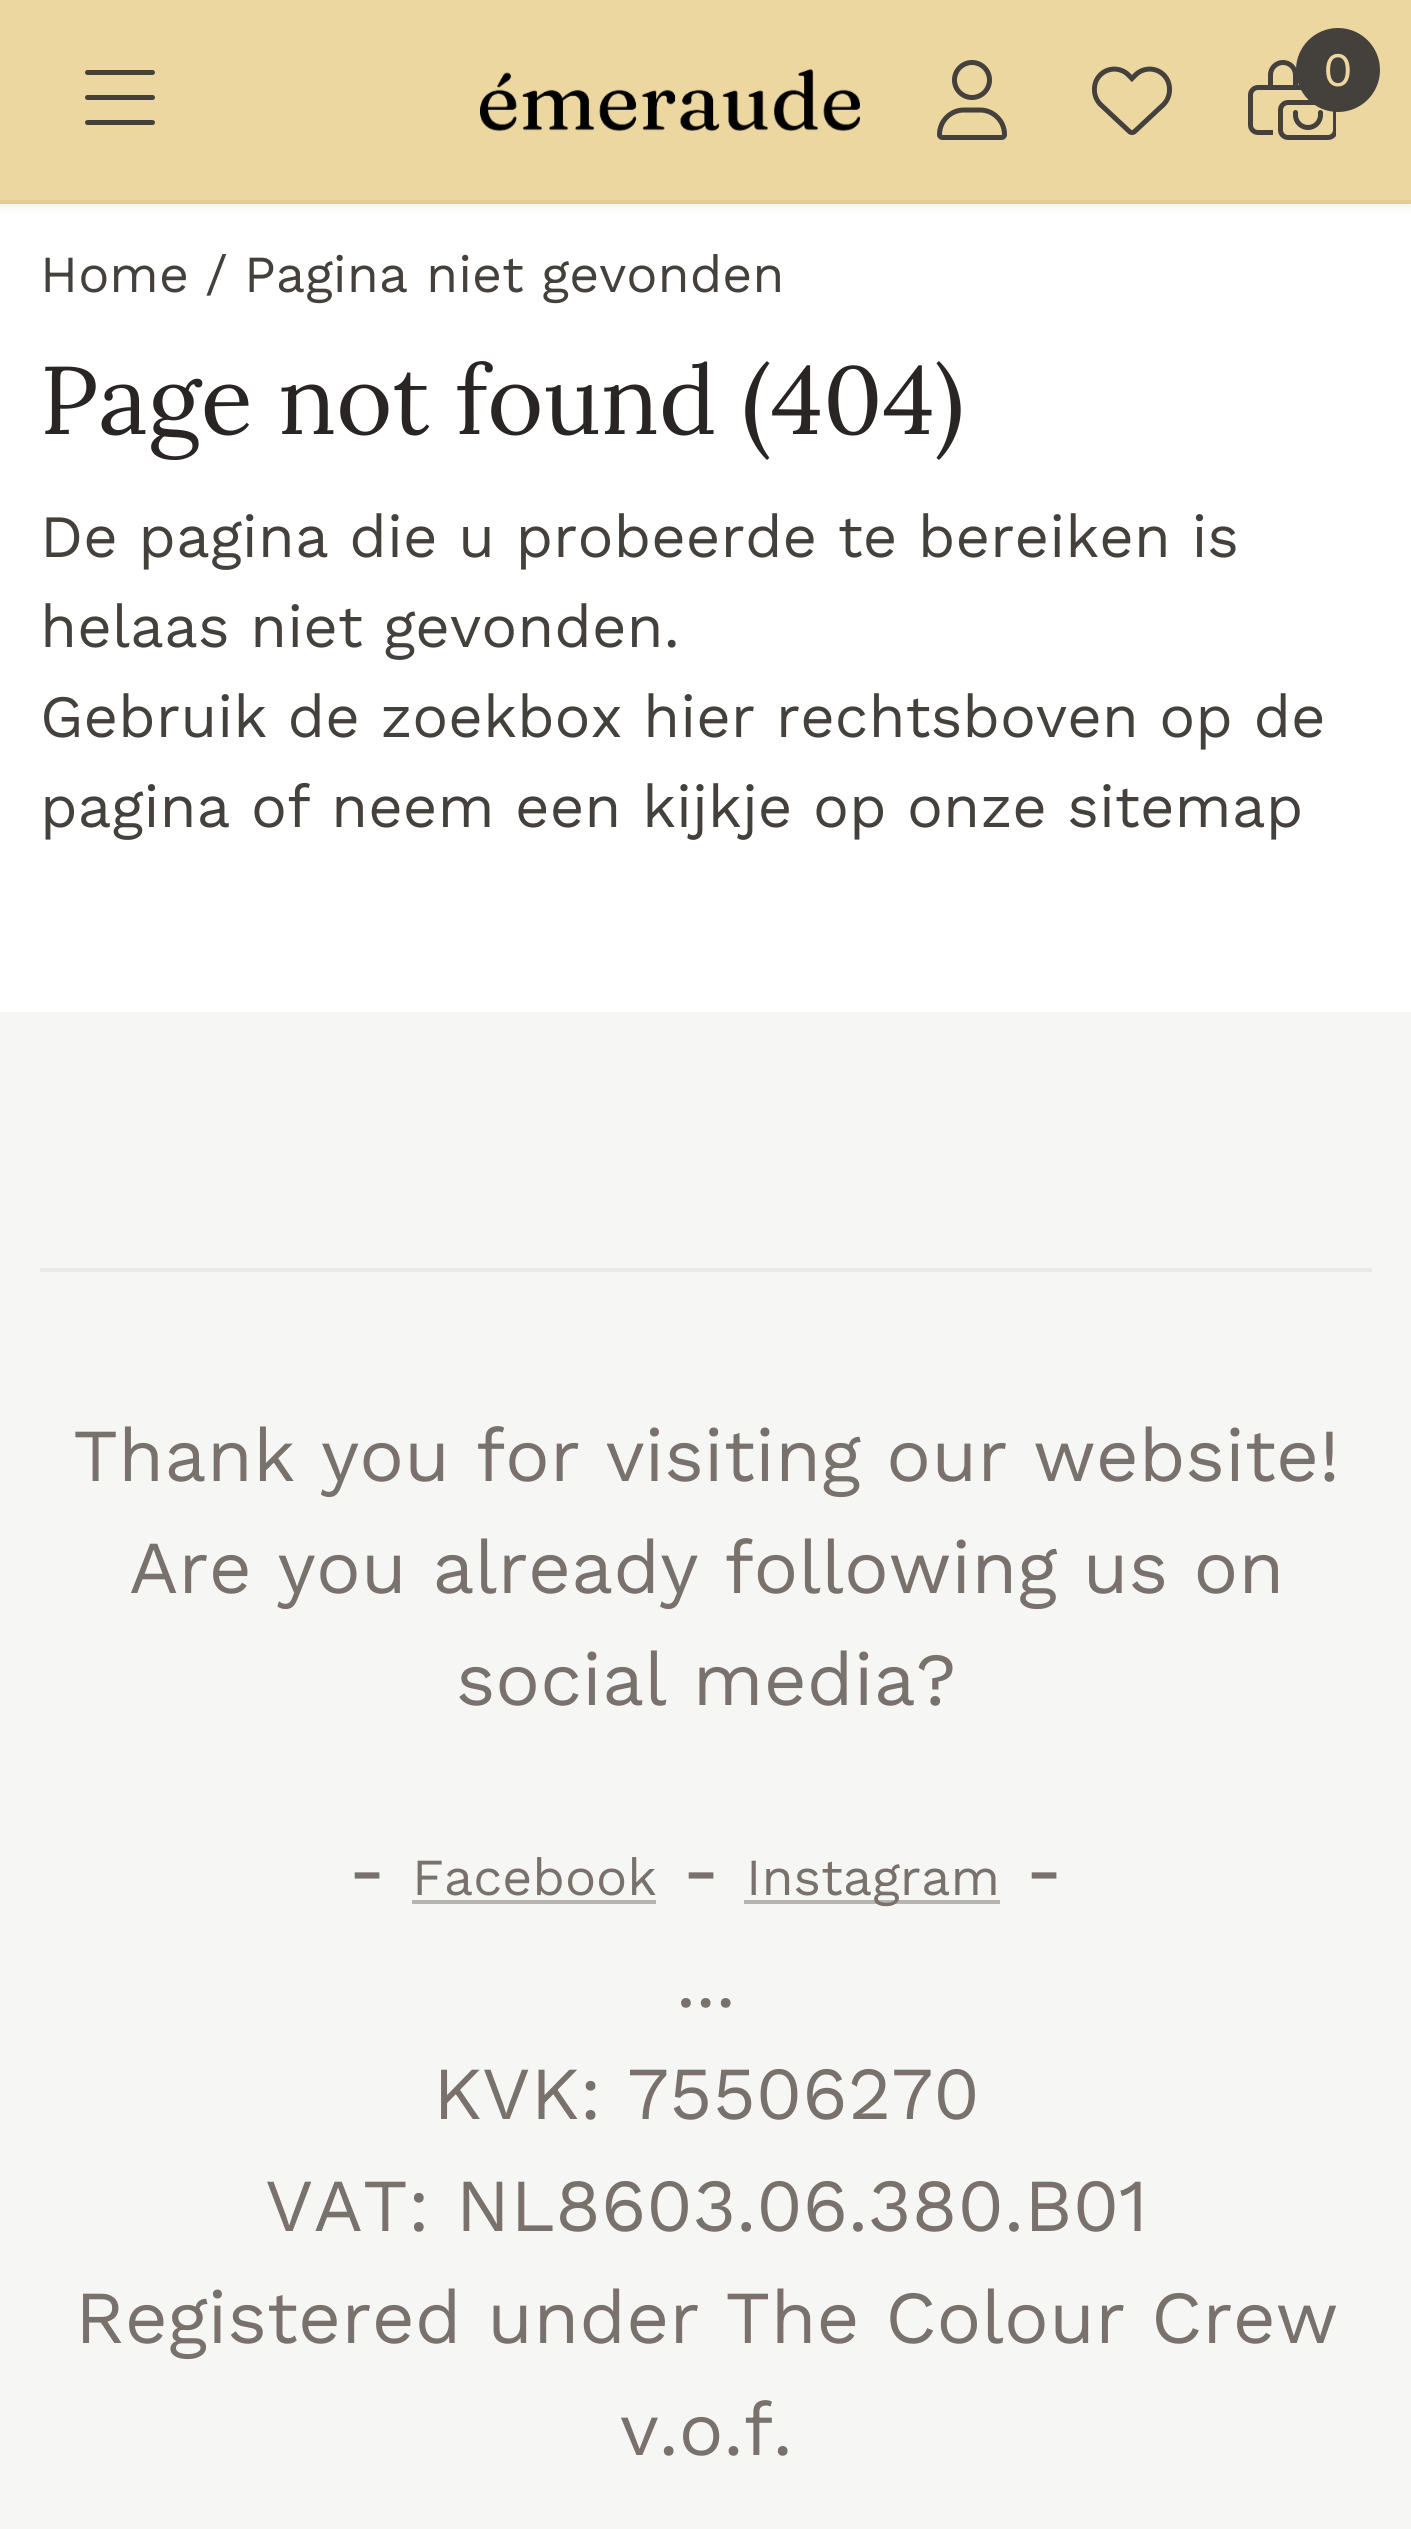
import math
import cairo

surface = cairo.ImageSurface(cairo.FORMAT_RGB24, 1411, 2529)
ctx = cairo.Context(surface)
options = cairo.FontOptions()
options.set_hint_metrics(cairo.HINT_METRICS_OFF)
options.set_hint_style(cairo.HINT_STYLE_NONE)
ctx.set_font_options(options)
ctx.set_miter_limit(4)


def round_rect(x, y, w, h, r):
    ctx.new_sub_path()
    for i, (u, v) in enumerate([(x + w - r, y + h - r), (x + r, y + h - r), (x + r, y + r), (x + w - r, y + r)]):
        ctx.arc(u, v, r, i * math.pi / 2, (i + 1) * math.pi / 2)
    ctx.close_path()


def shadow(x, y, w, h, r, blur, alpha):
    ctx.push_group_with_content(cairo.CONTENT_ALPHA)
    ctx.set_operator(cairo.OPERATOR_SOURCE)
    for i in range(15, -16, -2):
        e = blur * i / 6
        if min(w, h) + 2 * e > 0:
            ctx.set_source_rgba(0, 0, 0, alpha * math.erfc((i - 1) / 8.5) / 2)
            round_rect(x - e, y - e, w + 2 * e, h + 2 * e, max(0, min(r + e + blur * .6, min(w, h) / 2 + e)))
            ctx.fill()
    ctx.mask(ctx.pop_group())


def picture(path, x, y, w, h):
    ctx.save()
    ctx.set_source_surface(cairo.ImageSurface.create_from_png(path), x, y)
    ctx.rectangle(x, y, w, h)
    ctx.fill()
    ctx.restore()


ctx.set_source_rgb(1, 1, 1)
ctx.paint()
ctx.set_source_rgb(0, 0, 0)
shadow(0, 4, 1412, 204, 0, 4, 0.05)
ctx.set_source_rgb(0.925, 0.843, 0.631)
ctx.rectangle(0, 0, 1411, 200)
ctx.fill()
ctx.set_source_rgb(0.878, 0.8, 0.6)
ctx.rectangle(0, 200, 1411, 4)
ctx.fill()
picture("img1.png", 85, 70, 70, 55)
picture("img2.png", 480, 68, 380, 63)
picture("img3.png", 937, 60, 70, 80)
picture("img4.png", 1092, 66, 80, 69)
picture("img5.png", 1248, 60, 88, 80)
ctx.set_source_rgb(0.267, 0.251, 0.235)
ctx.arc(1338, 70, 42, 0, 2 * math.pi)
ctx.fill()
ctx.select_font_face("Work Sans")
ctx.set_font_size(48)
ctx.set_source_rgb(0.925, 0.843, 0.631)
ctx.move_to(1323, 86)
ctx.show_text("0")
ctx.set_font_size(52)
ctx.set_source_rgb(0.267, 0.251, 0.235)
ctx.move_to(40, 292)
ctx.show_text("Home")
ctx.move_to(205, 292)
ctx.show_text("/")
ctx.move_to(244, 292)
ctx.show_text("Pagina niet gevonden")
ctx.select_font_face("Lora")
ctx.set_font_size(96)
ctx.set_source_rgb(0.161, 0.145, 0.141)
ctx.move_to(40, 434)
ctx.show_text("Page not found (404)")
ctx.select_font_face("Work Sans")
ctx.set_font_size(60)
ctx.set_source_rgb(0.267, 0.251, 0.235)
ctx.move_to(40, 557)
ctx.show_text("De pagina die u probeerde te bereiken is")
ctx.move_to(40, 647)
ctx.show_text("helaas niet gevonden.")
ctx.move_to(40, 737)
ctx.show_text("Gebruik de zoekbox hier rechtsboven op de")
ctx.move_to(40, 827)
ctx.show_text("pagina of neem een kijkje op onze sitemap")
ctx.set_source_rgb(0.961, 0.961, 0.957)
ctx.rectangle(0, 1012, 1411, 1517)
ctx.fill()
ctx.set_source_rgb(0.914, 0.914, 0.91)
ctx.rectangle(40, 1268, 1332, 4)
ctx.fill()
ctx.set_font_size(74.7)
ctx.set_source_rgb(0.471, 0.443, 0.424)
ctx.move_to(73, 1481)
ctx.show_text("Thank you for visiting our website!")
ctx.move_to(129, 1593)
ctx.show_text("Are you already following us on")
ctx.move_to(456, 1705)
ctx.show_text("social media?")
ctx.move_to(348, 1895)
ctx.show_text("-")
ctx.set_font_size(52)
ctx.move_to(412, 1895)
ctx.show_text("Facebook")
ctx.set_source_rgb(0.718, 0.702, 0.69)
ctx.rectangle(412, 1900, 244, 4)
ctx.fill()
ctx.set_font_size(74.7)
ctx.set_source_rgb(0.471, 0.443, 0.424)
ctx.move_to(682, 1895)
ctx.show_text("-")
ctx.set_source_rgb(0.718, 0.702, 0.69)
ctx.rectangle(744, 1900, 256, 4)
ctx.fill()
ctx.set_font_size(52)
ctx.set_source_rgb(0.471, 0.443, 0.424)
ctx.move_to(746, 1895)
ctx.show_text("Instagram")
ctx.set_font_size(74.7)
ctx.move_to(1025, 1895)
ctx.show_text("-")
ctx.move_to(676, 2007)
ctx.show_text("...")
ctx.move_to(433, 2119)
ctx.show_text("KVK: 75506270")
ctx.move_to(265, 2231)
ctx.show_text("VAT: NL8603.06.380.B01")
ctx.move_to(75, 2343)
ctx.show_text("Registered under The Colour Crew")
ctx.move_to(620, 2455)
ctx.show_text("v.o.f.")
surface.write_to_png("page.png")
